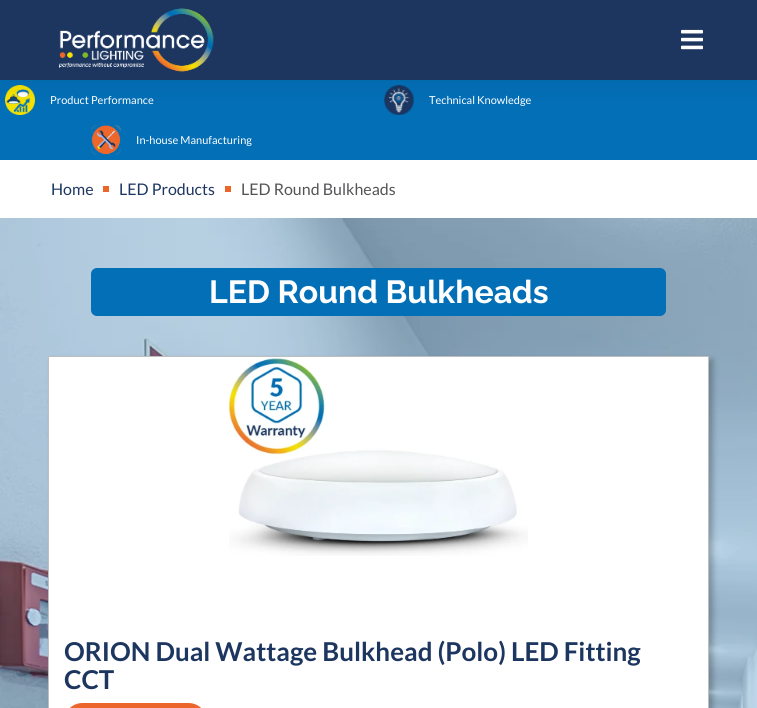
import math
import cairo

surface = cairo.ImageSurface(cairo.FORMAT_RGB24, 757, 708)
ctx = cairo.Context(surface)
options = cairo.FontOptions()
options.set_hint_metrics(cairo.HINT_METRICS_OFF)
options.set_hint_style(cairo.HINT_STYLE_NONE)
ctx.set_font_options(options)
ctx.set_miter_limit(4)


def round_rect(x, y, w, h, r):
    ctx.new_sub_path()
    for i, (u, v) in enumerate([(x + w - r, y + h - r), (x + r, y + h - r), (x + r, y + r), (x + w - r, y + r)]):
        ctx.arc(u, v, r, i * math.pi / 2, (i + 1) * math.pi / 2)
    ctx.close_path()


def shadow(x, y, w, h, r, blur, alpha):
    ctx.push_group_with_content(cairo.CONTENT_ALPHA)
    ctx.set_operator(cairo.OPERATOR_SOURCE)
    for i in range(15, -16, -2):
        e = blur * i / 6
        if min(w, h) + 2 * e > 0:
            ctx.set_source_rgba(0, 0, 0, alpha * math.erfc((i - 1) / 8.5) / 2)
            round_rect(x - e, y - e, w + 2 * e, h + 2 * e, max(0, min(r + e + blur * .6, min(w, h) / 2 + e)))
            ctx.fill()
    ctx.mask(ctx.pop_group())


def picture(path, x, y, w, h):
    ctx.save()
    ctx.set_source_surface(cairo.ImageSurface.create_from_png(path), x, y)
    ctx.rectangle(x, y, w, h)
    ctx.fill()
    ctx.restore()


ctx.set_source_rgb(1, 1, 1)
ctx.paint()
ctx.set_source_rgb(0.012, 0.435, 0.718)
ctx.rectangle(0, 80, 757, 80)
ctx.fill()
picture("img3.png", 5, 85, 30, 30)
picture("img4.png", 384, 85, 30, 30)
ctx.save()
ctx.rectangle(91, 125, 30, 30)
ctx.clip()
ctx.arc(106, 140, 18, 0, 2 * math.pi)
ctx.set_source_rgb(0.086, 0.451, 0.698)
ctx.stroke()
ctx.new_path()
ctx.move_to(124, 140)
ctx.curve_to(124, 130, 116, 122, 106, 122)
ctx.set_source_rgba(0.545, 0.553, 0.58, 0.25)
ctx.stroke()
ctx.restore()
picture("img5.png", 91, 125, 30, 30)
ctx.set_source_rgb(0, 0, 0)
shadow(0, 0, 757, 80, 0, 15, 0.1)
ctx.set_source_rgb(0.114, 0.212, 0.376)
ctx.rectangle(0, 0, 757, 80)
ctx.fill()
picture("img1.png", 59, 8, 155, 64)
picture("img2.png", 681, 29, 22, 21)
ctx.select_font_face("Lato")
ctx.set_font_size(11)
ctx.set_source_rgb(1, 1, 1)
ctx.move_to(50, 104)
ctx.show_text("Product Performance")
ctx.move_to(429, 104)
ctx.show_text("Technical Knowledge")
ctx.move_to(136, 144)
ctx.show_text("In-house Manufacturing")
ctx.set_font_size(16)
ctx.set_source_rgb(0.114, 0.212, 0.376)
ctx.move_to(51, 195)
ctx.show_text("Home")
ctx.set_source_rgb(0.925, 0.4, 0.173)
ctx.rectangle(103, 186, 6, 6)
ctx.fill()
ctx.set_source_rgb(0.114, 0.212, 0.376)
ctx.move_to(119, 195)
ctx.show_text("LED Products")
ctx.set_source_rgb(0.925, 0.4, 0.173)
ctx.rectangle(225, 186, 6, 6)
ctx.fill()
ctx.set_source_rgb(0.325, 0.329, 0.337)
ctx.move_to(241, 195)
ctx.show_text("LED Round Bulkheads")
picture("img6.png", 0, 218, 757, 490)
ctx.set_source_rgb(0.012, 0.435, 0.718)
round_rect(91, 268, 575, 48, 6)
ctx.fill()
ctx.select_font_face("Raleway", cairo.FONT_SLANT_NORMAL, cairo.FONT_WEIGHT_BOLD)
ctx.set_font_size(32)
ctx.set_source_rgb(1, 1, 1)
ctx.move_to(209, 303)
ctx.show_text("LED Round Bulkheads")
ctx.set_source_rgb(0, 0, 0)
shadow(52, 360, 661, 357, 0, 3, 0.25)
ctx.set_source_rgb(1, 1, 1)
ctx.rectangle(48.5, 356.5, 660, 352)
ctx.fill_preserve()
ctx.set_source_rgb(0.737, 0.745, 0.753)
ctx.set_line_width(1)
ctx.stroke()
picture("img7.png", 229, 357, 299, 199)
ctx.select_font_face("Lato", cairo.FONT_SLANT_NORMAL, cairo.FONT_WEIGHT_BOLD)
ctx.set_font_size(26)
ctx.set_source_rgb(0.114, 0.212, 0.376)
ctx.move_to(64, 661)
ctx.show_text("ORION Dual Wattage Bulkhead (Polo) LED Fitting")
ctx.move_to(64, 689)
ctx.show_text("CCT")
ctx.set_source_rgb(0.925, 0.4, 0.173)
round_rect(64, 703, 143, 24, 18.5)
ctx.fill()
surface.write_to_png("page.png")
